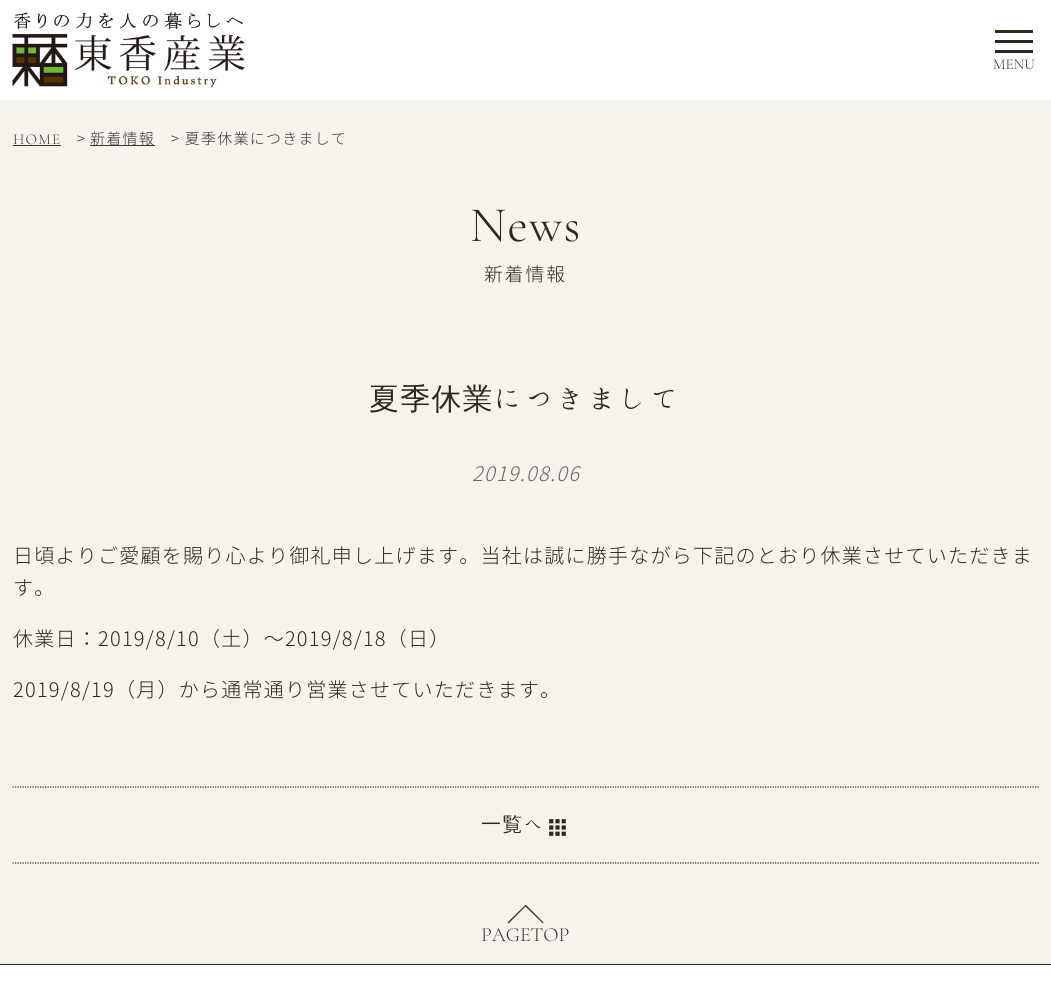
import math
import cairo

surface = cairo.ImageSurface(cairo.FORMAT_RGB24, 1051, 987)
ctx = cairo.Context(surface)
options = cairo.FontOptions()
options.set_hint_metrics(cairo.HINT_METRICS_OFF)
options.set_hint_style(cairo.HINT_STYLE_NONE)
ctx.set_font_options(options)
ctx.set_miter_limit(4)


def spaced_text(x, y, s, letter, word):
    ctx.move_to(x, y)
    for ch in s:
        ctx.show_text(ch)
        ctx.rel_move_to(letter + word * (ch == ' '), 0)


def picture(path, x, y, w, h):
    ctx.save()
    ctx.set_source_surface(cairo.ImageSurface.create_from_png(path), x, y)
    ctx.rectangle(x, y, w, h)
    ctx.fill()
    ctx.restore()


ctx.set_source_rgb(0.961, 0.953, 0.929)
ctx.paint()
ctx.set_source_rgb(1, 1, 1)
ctx.rectangle(0, 0, 1051, 100)
ctx.fill()
picture("img1.png", 12, 12, 233, 76)
ctx.set_source_rgb(0.188, 0.153, 0.114)
ctx.rectangle(995, 40, 38, 3)
ctx.fill()
ctx.rectangle(995, 30, 38, 3)
ctx.fill()
ctx.rectangle(995, 50, 38, 3)
ctx.fill()
ctx.select_font_face("Cormorant Garamond Light")
ctx.set_font_size(15)
ctx.move_to(993, 69)
ctx.show_text("MENU")
ctx.set_source_rgb(0.2, 0.2, 0.2)
spaced_text(13, 144, "HOME", 1.25, 0)
ctx.rectangle(13, 145, 48, 1)
ctx.fill()
ctx.select_font_face("Noto Sans JP Light")
spaced_text(77, 144, ">", 1.25, 0)
ctx.rectangle(90, 145, 65, 1)
ctx.fill()
spaced_text(90, 144, "新着情報", 1.25, 0)
spaced_text(171, 144, "> 夏季休業につきまして", 1.25, 0)
ctx.select_font_face("Cormorant Garamond Light")
ctx.set_font_size(50)
ctx.set_source_rgb(0.188, 0.153, 0.114)
spaced_text(470, 241, "News", 1.25, 0)
ctx.select_font_face("Noto Sans JP Light")
ctx.set_font_size(18.75)
spaced_text(484, 281, "新着情報", 2, 0)
ctx.select_font_face("WenQuanYi Zen Hei Medium")
ctx.set_font_size(30)
spaced_text(369, 409, "夏季休業", 1.25, 0)
ctx.select_font_face("Hannari")
spaced_text(494, 409, "につきまして", 1.25, 0)
ctx.select_font_face("Noto Sans JP Light", cairo.FONT_SLANT_ITALIC)
ctx.set_font_size(20)
ctx.set_source_rgb(0.4, 0.4, 0.4)
spaced_text(472, 481, "2019.08.06", 1.25, 0)
ctx.select_font_face("Noto Sans JP Light")
ctx.set_source_rgb(0.188, 0.153, 0.114)
spaced_text(13, 563, "日頃よりご愛顧を賜り心より御礼申し上げます。当社は誠に勝手ながら下記のとおり休業させていただきま", 1.25, 0)
spaced_text(13, 595, "す。", 1.25, 0)
spaced_text(13, 646, "休業日：2019/8/10（土）～2019/8/18（日）", 1.25, 0)
spaced_text(13, 697, "2019/8/19（月）から通常通り営業させていただきます。", 1.25, 0)
ctx.new_path()
ctx.move_to(12.5, 787)
ctx.line_to(1039, 787)
ctx.set_source_rgb(0.188, 0.149, 0.114)
ctx.set_line_width(1.2)
ctx.set_dash([1.25, 1.25])
ctx.stroke()
ctx.new_path()
ctx.move_to(12.5, 863)
ctx.line_to(1039, 863)
ctx.stroke()
ctx.select_font_face("WenQuanYi Zen Hei Medium")
ctx.set_source_rgb(0.188, 0.153, 0.114)
spaced_text(481, 831, "一覧", 1.25, 0)
ctx.select_font_face("Hannari")
spaced_text(524, 831, "へ", 1.25, 0)
picture("img2.png", 549, 819, 17, 17)
ctx.new_path()
ctx.move_to(526, 905)
ctx.line_to(543.5, 922.5)
ctx.line_to(543, 923.5)
ctx.line_to(525, 906)
ctx.close_path()
ctx.fill()
ctx.new_path()
ctx.move_to(507.5, 922.5)
ctx.line_to(525.5, 905)
ctx.line_to(526, 906)
ctx.line_to(508.5, 923.5)
ctx.close_path()
ctx.fill()
ctx.select_font_face("Cormorant Garamond Light")
ctx.set_source_rgb(0.2, 0.2, 0.2)
ctx.move_to(481, 941)
ctx.show_text("PAGETOP")
ctx.set_source_rgb(1, 1, 1)
ctx.rectangle(0, 965, 1051, 22)
ctx.fill()
ctx.set_source_rgb(0.188, 0.153, 0.114)
ctx.rectangle(0, 964, 1051, 1)
ctx.fill()
surface.write_to_png("page.png")
